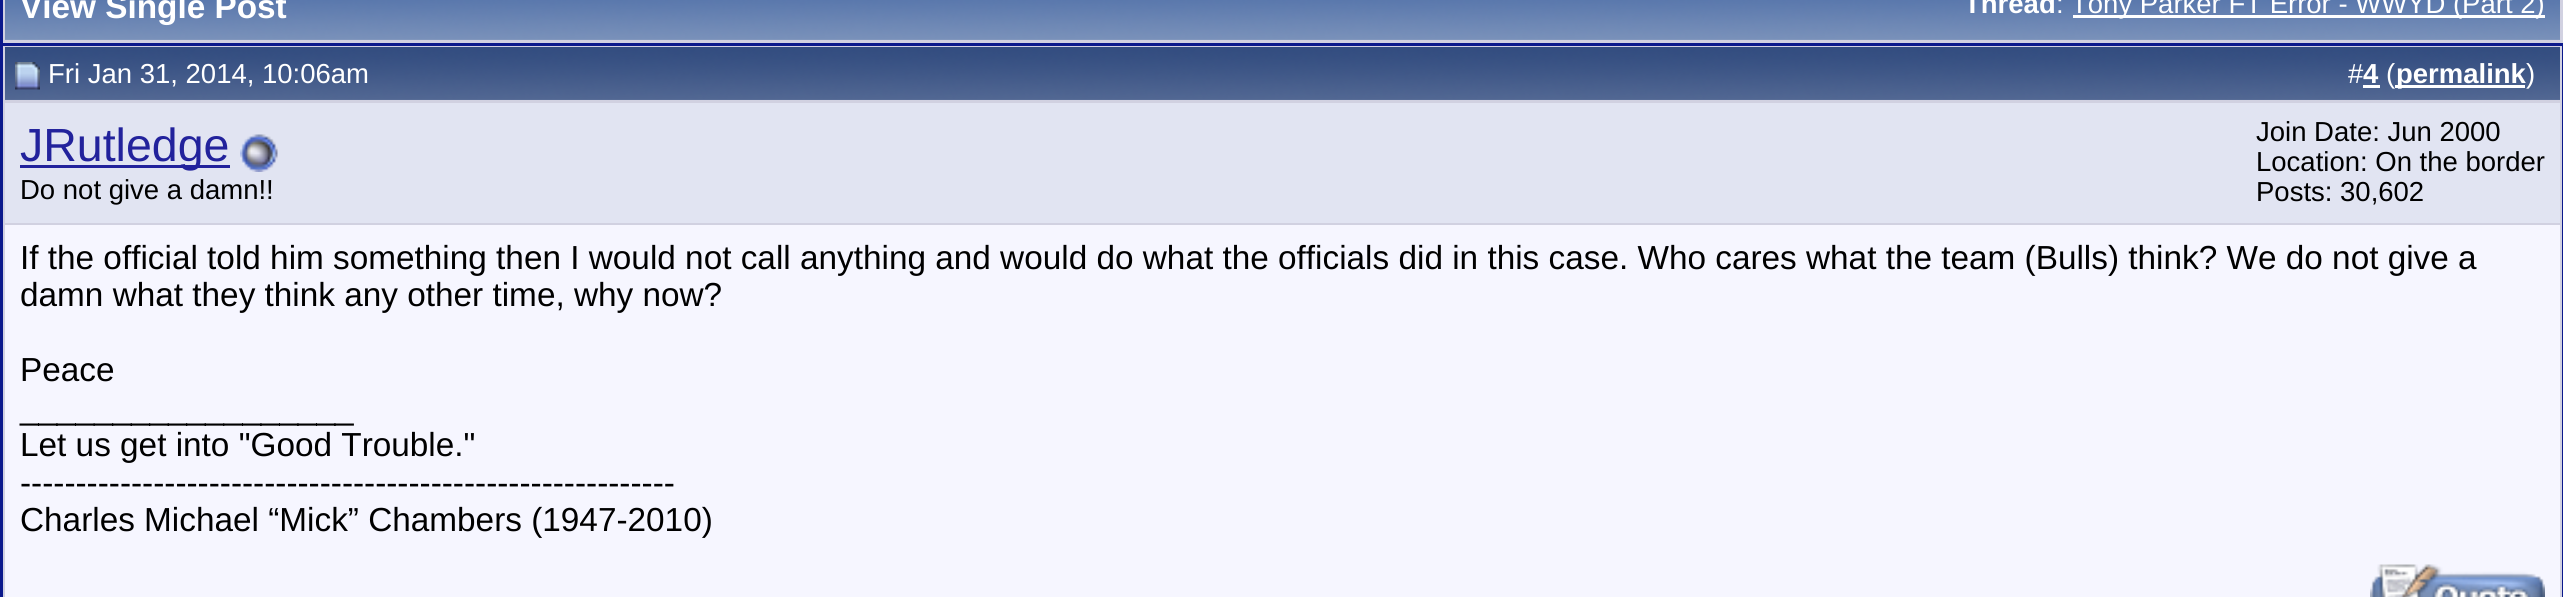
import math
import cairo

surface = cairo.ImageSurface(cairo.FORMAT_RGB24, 2563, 597)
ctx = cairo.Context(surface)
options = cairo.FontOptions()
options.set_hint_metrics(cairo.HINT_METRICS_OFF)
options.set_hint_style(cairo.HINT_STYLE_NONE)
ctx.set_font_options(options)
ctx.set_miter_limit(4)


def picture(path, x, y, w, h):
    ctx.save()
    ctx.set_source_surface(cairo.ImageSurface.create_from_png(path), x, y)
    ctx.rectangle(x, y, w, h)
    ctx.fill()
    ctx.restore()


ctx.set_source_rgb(0.82, 0.82, 0.882)
ctx.paint()
ctx.set_source_rgb(0.043, 0.098, 0.549)
ctx.rectangle(0, 0, 3, 43)
ctx.fill()
ctx.set_source_rgb(0.525, 0.608, 0.749)
ctx.rectangle(5, 39, 2555, 1)
ctx.fill()
picture("img1.png", 5, 0, 2555, 40)
ctx.select_font_face("Liberation Sans", cairo.FONT_SLANT_NORMAL, cairo.FONT_WEIGHT_BOLD)
ctx.set_font_size(33.33)
ctx.set_source_rgb(1, 1, 1)
ctx.move_to(20, 18)
ctx.show_text("View Single Post")
ctx.set_font_size(27.5)
ctx.move_to(1964, 13)
ctx.show_text("Thread")
ctx.select_font_face("Liberation Sans")
ctx.move_to(2056, 13)
ctx.show_text(":")
ctx.rectangle(2073, 15, 472, 3)
ctx.fill()
ctx.move_to(2071, 13)
ctx.show_text("Tony Parker FT Error - WWYD (Part 2)")
ctx.rectangle(1.5, 44.5, 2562, 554)
ctx.set_source_rgb(0.043, 0.098, 0.549)
ctx.set_line_width(3)
ctx.stroke()
ctx.set_source_rgb(0.361, 0.439, 0.6)
ctx.rectangle(5, 99, 2555, 1)
ctx.fill()
picture("img2.png", 5, 47, 2555, 53)
picture("img3.png", 15, 62, 25, 28)
ctx.set_source_rgb(1, 1, 1)
ctx.move_to(48, 83)
ctx.show_text("Fri Jan 31, 2014, 10:06am")
ctx.move_to(2348, 83)
ctx.show_text("#")
ctx.select_font_face("Liberation Sans", cairo.FONT_SLANT_NORMAL, cairo.FONT_WEIGHT_BOLD)
ctx.move_to(2363, 83)
ctx.show_text("4")
ctx.rectangle(2363, 85, 17, 3)
ctx.fill()
ctx.select_font_face("Liberation Sans")
ctx.move_to(2386, 83)
ctx.show_text("(")
ctx.rectangle(2395, 85, 130, 3)
ctx.fill()
ctx.select_font_face("Liberation Sans", cairo.FONT_SLANT_NORMAL, cairo.FONT_WEIGHT_BOLD)
ctx.move_to(2396, 83)
ctx.show_text("permalink")
ctx.select_font_face("Liberation Sans")
ctx.move_to(2526, 83)
ctx.show_text(")")
ctx.set_source_rgb(0.882, 0.894, 0.949)
ctx.rectangle(5, 103, 2555, 120)
ctx.fill()
ctx.set_source_rgb(0.133, 0.133, 0.612)
ctx.rectangle(20, 165, 210, 3)
ctx.fill()
ctx.set_font_size(46.5)
ctx.move_to(20, 161)
ctx.show_text("JRutledge")
picture("img4.png", 240, 134, 38, 38)
ctx.set_font_size(27.5)
ctx.set_source_rgb(0, 0, 0)
ctx.move_to(20, 199)
ctx.show_text("Do not give a damn!!")
ctx.move_to(2256, 141)
ctx.show_text("Join Date: Jun 2000")
ctx.move_to(2256, 171)
ctx.show_text("Location: On the border")
ctx.move_to(2256, 201)
ctx.show_text("Posts: 30,602")
ctx.set_source_rgb(0.961, 0.961, 1)
ctx.rectangle(5, 225, 2555, 372)
ctx.fill()
ctx.set_font_size(33.33)
ctx.set_source_rgb(0, 0, 0)
ctx.move_to(20, 269)
ctx.show_text("If the official told him something then I would not call anything and would do what the officials did in this case. Who cares what the team (Bulls) think? We do not give a")
ctx.move_to(20, 306)
ctx.show_text("damn what they think any other time, why now?")
ctx.move_to(20, 381)
ctx.show_text("Peace")
ctx.move_to(20, 419)
ctx.show_text("__________________")
ctx.move_to(20, 456)
ctx.show_text("Let us get into \"Good Trouble.\"")
ctx.move_to(20, 494)
ctx.show_text("-----------------------------------------------------------")
ctx.move_to(20, 531)
ctx.show_text("Charles Michael “Mick” Chambers (1947-2010)")
picture("img5.png", 2370, 564, 175, 33)
surface.write_to_png("page.png")
